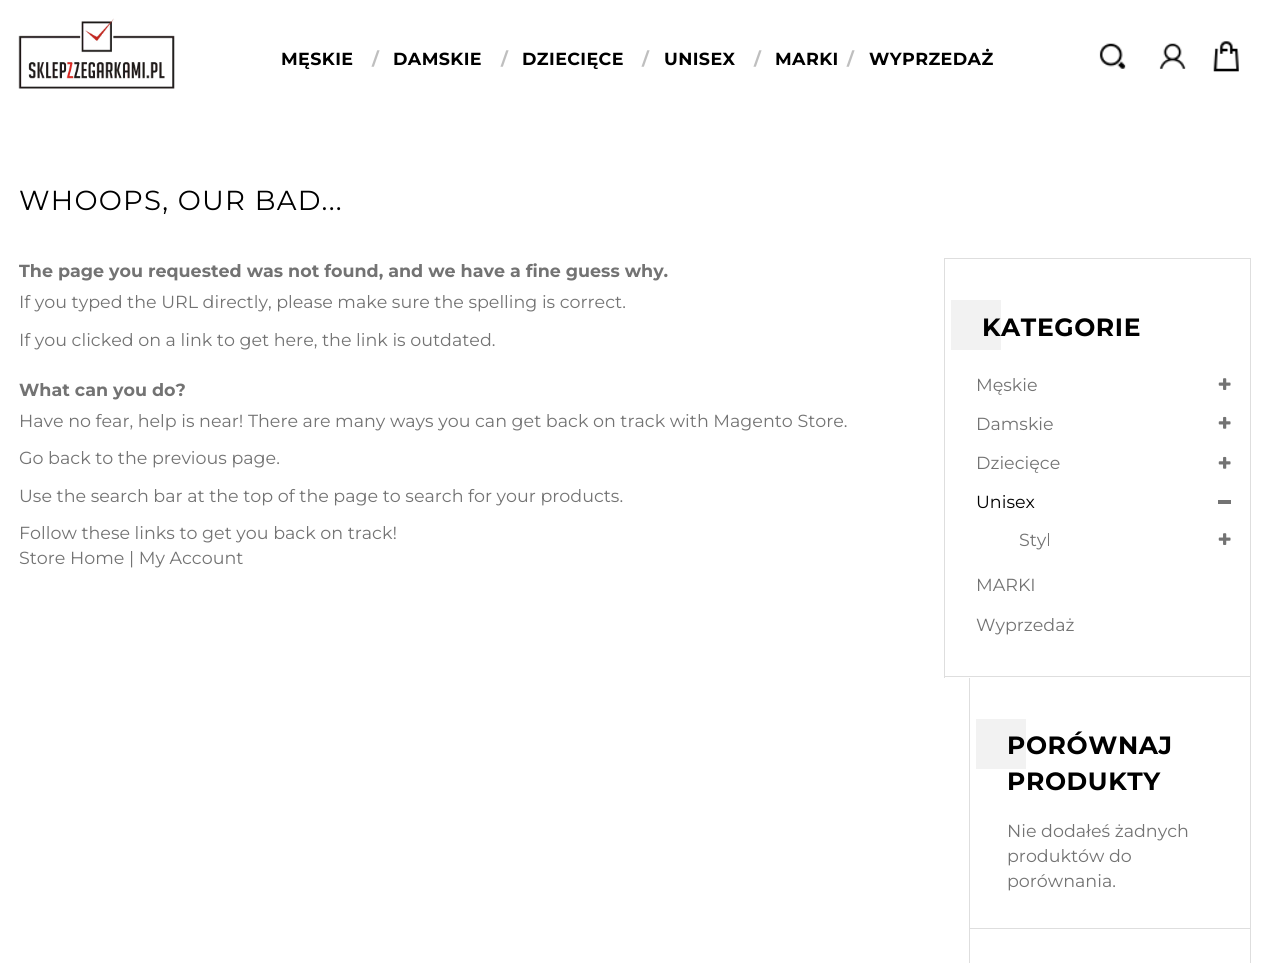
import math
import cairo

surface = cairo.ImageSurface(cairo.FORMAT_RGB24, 1270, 963)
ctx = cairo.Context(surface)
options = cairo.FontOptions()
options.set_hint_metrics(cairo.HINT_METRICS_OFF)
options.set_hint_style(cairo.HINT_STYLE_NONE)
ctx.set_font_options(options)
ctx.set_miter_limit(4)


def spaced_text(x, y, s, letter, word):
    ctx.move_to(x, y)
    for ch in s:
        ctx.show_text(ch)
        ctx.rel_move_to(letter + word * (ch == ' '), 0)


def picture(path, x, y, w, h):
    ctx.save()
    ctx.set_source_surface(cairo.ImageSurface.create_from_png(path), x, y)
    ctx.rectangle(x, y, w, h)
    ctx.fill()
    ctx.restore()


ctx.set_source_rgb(1, 1, 1)
ctx.paint()
picture("img1.png", 18, 18, 157, 71)
ctx.select_font_face("Montserrat Thin")
ctx.set_font_size(17.5)
ctx.set_source_rgb(0, 0, 0)
spaced_text(281, 65, "MĘSKIE", 0.4, 0)
ctx.set_source_rgb(0.749, 0.749, 0.749)
spaced_text(372, 65, "/", 0.4, 0)
ctx.set_source_rgb(0, 0, 0)
spaced_text(393, 65, "DAMSKIE", 0.4, 0)
ctx.set_source_rgb(0.749, 0.749, 0.749)
spaced_text(501, 65, "/", 0.4, 0)
ctx.set_source_rgb(0, 0, 0)
spaced_text(522, 65, "DZIECIĘCE", 0.4, 0)
ctx.set_source_rgb(0.749, 0.749, 0.749)
spaced_text(642, 65, "/", 0.4, 0)
ctx.set_source_rgb(0, 0, 0)
spaced_text(664, 65, "UNISEX", 0.4, 0)
ctx.set_source_rgb(0.749, 0.749, 0.749)
spaced_text(754, 65, "/", 0.4, 0)
ctx.set_source_rgb(0, 0, 0)
spaced_text(775, 65, "MARKI", 0.4, 0)
ctx.set_source_rgb(0.749, 0.749, 0.749)
spaced_text(847, 65, "/", 0.4, 0)
ctx.set_source_rgb(0, 0, 0)
spaced_text(869, 65, "WYPRZEDAŻ", 0.4, 0)
picture("img2.png", 1099, 43, 27, 26)
picture("img3.png", 1159, 43, 27, 26)
picture("img4.png", 1213, 41, 26, 31)
ctx.select_font_face("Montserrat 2 Thin")
ctx.set_font_size(27.5)
spaced_text(19, 210, "WHOOPS, OUR BAD...", 1.25, 0)
ctx.select_font_face("Montserrat Thin")
ctx.set_font_size(17.5)
ctx.set_source_rgb(0.451, 0.451, 0.451)
ctx.move_to(19, 277)
ctx.show_text("The page you requested was not found, and we have a fine guess why.")
ctx.select_font_face("Montserrat 2 Thin")
ctx.move_to(19, 308)
ctx.show_text("If you typed the URL directly, please make sure the spelling is correct.")
ctx.move_to(19, 346)
ctx.show_text("If you clicked on a link to get here, the link is outdated.")
ctx.select_font_face("Montserrat Thin")
ctx.move_to(19, 396)
ctx.show_text("What can you do?")
ctx.select_font_face("Montserrat 2 Thin")
ctx.move_to(19, 427)
ctx.show_text("Have no fear, help is near! There are many ways you can get back on track with Magento Store.")
ctx.move_to(19, 464)
ctx.show_text("Go back to the previous page.")
ctx.move_to(19, 502)
ctx.show_text("Use the search bar at the top of the page to search for your products.")
ctx.move_to(19, 539)
ctx.show_text("Follow these links to get you back on track!")
ctx.move_to(19, 564)
ctx.show_text("Store Home | My Account")
ctx.set_source_rgb(0.871, 0.871, 0.871)
ctx.rectangle(944, 258, 307, 1)
ctx.fill()
ctx.rectangle(1250, 258, 1, 705)
ctx.fill()
ctx.rectangle(944, 258, 1, 420)
ctx.fill()
ctx.rectangle(945, 676, 305, 1)
ctx.fill()
ctx.set_source_rgb(0.949, 0.949, 0.949)
ctx.rectangle(951, 300, 50, 50)
ctx.fill()
ctx.select_font_face("Montserrat Thin")
ctx.set_font_size(25)
ctx.set_source_rgb(0, 0, 0)
spaced_text(982, 336, "KATEGORIE", 0.6, 0)
ctx.select_font_face("Montserrat 2 Thin")
ctx.set_font_size(17.5)
ctx.set_source_rgb(0.451, 0.451, 0.451)
ctx.move_to(976, 391)
ctx.show_text("Męskie")
picture("img5.png", 1218, 378, 13, 12)
ctx.move_to(976, 430)
ctx.show_text("Damskie")
picture("img6.png", 1218, 416, 13, 13)
ctx.move_to(976, 469)
ctx.show_text("Dziecięce")
picture("img6.png", 1218, 456, 13, 13)
ctx.set_source_rgb(0, 0, 0)
ctx.move_to(976, 508)
ctx.show_text("Unisex")
ctx.set_source_rgb(0.451, 0.451, 0.451)
ctx.rectangle(1218, 500, 13, 4)
ctx.fill()
ctx.move_to(1019, 546)
ctx.show_text("Styl")
picture("img5.png", 1218, 533, 13, 12)
ctx.move_to(976, 591)
ctx.show_text("MARKI")
ctx.move_to(976, 631)
ctx.show_text("Wyprzedaż")
ctx.set_source_rgb(0.871, 0.871, 0.871)
ctx.rectangle(969, 678, 1, 285)
ctx.fill()
ctx.rectangle(970, 928, 280, 1)
ctx.fill()
ctx.set_source_rgb(0.949, 0.949, 0.949)
ctx.rectangle(976, 719, 50, 50)
ctx.fill()
ctx.select_font_face("Montserrat Thin")
ctx.set_font_size(25)
ctx.set_source_rgb(0, 0, 0)
spaced_text(1007, 754, "PORÓWNAJ", 0.6, 0)
spaced_text(1007, 790, "PRODUKTY", 0.6, 0)
ctx.select_font_face("Montserrat 2 Thin")
ctx.set_font_size(17.5)
ctx.set_source_rgb(0.451, 0.451, 0.451)
ctx.move_to(1007, 837)
ctx.show_text("Nie dodałeś żadnych")
ctx.move_to(1007, 862)
ctx.show_text("produktów do")
ctx.move_to(1007, 887)
ctx.show_text("porównania.")
surface.write_to_png("page.png")
